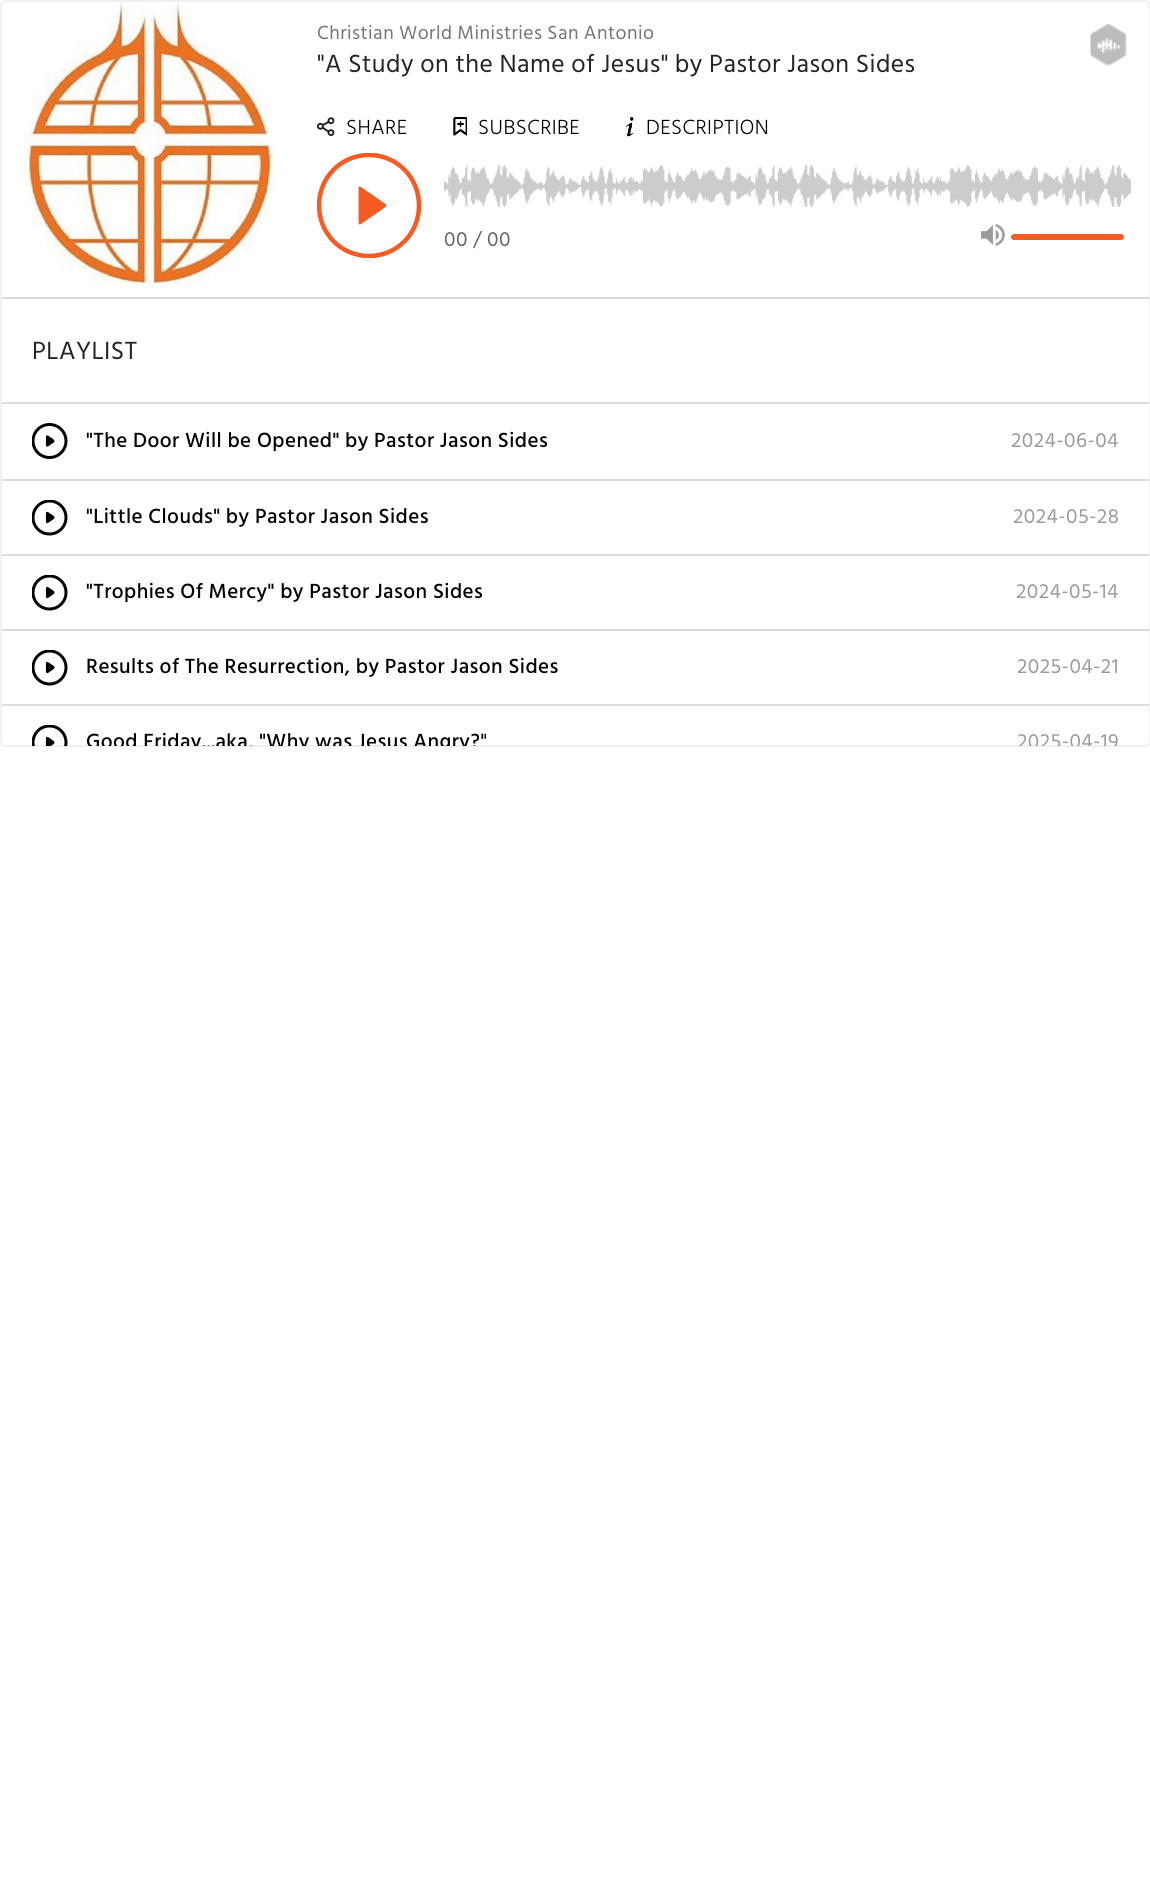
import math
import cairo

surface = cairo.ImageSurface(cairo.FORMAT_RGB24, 1150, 1886)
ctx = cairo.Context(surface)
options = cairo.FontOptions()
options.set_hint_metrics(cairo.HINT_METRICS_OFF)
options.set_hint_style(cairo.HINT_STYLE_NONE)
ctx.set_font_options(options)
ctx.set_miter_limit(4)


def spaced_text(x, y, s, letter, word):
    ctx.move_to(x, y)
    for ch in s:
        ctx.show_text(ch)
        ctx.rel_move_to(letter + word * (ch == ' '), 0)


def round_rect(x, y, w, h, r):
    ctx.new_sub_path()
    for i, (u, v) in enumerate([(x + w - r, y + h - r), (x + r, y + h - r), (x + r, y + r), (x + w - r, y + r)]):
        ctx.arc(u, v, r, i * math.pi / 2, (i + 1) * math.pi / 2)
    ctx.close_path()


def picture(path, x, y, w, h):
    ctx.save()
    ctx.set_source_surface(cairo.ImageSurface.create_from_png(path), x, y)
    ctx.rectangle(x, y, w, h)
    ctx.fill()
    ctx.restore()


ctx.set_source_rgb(1, 1, 1)
ctx.paint()
round_rect(1, 1, 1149, 745, 5)
ctx.set_source_rgb(0.941, 0.941, 0.941)
ctx.stroke()
ctx.set_source_rgb(0.863, 0.863, 0.863)
ctx.rectangle(2, 297, 1147, 2)
ctx.fill()
picture("img1.png", 24, 2, 251, 286)
ctx.select_font_face("Hind Siliguri")
ctx.set_font_size(19.5)
ctx.set_source_rgb(0.459, 0.459, 0.459)
spaced_text(317, 39, "Christian World Ministries San Antonio", 0.45, 0)
picture("img2.png", 1090, 24, 37, 42)
ctx.set_font_size(25.5)
ctx.set_source_rgb(0.129, 0.145, 0.161)
spaced_text(317, 72, "\"A Study on the Name of Jesus\" by Pastor Jason Sides", 0.45, 0)
picture("img3.png", 317, 117, 18, 19)
ctx.select_font_face("Hind Siliguri Light")
ctx.set_font_size(21)
ctx.set_source_rgb(0, 0, 0)
spaced_text(346, 134, "SHARE", 0.45, 0)
picture("img4.png", 453, 117, 14, 19)
spaced_text(478, 134, "SUBSCRIBE", 0.45, 0)
picture("img5.png", 626, 117, 8, 20)
spaced_text(646, 134, "DESCRIPTION", 0.45, 0)
ctx.save()
ctx.rectangle(317, 153, 105, 105)
ctx.clip()
ctx.new_path()
ctx.move_to(319, 205.5)
ctx.curve_to(319, 177.5, 341, 155, 369, 155)
ctx.curve_to(397, 155, 419, 177.5, 419, 205.5)
ctx.curve_to(419, 233.5, 397, 256, 369, 256)
ctx.curve_to(341, 256, 319, 233.5, 319, 205.5)
ctx.close_path()
ctx.set_source_rgb(0.961, 0.357, 0.137)
ctx.set_line_width(4.5)
ctx.stroke()
ctx.restore()
ctx.set_source_rgb(0.961, 0.357, 0.137)
ctx.set_fill_rule(cairo.FILL_RULE_EVEN_ODD)
ctx.new_path()
ctx.move_to(358.5, 222.5)
ctx.curve_to(358.5, 224.5, 359.5, 225, 361, 224)
ctx.line_to(385.5, 207)
ctx.curve_to(386.5, 206.5, 386.5, 204.5, 385.5, 204)
ctx.line_to(361, 187)
ctx.curve_to(359.5, 186, 358.5, 186.5, 358.5, 188.5)
ctx.close_path()
ctx.fill()
ctx.set_source_rgb(0.8, 0.8, 0.8)
ctx.rectangle(444, 165, 687, 42)
ctx.fill()
picture("img6.png", 444, 165, 687, 42)
ctx.select_font_face("Hind Siliguri")
ctx.set_source_rgb(0.4, 0.4, 0.4)
spaced_text(444, 246, "00 / 00", 0.45, 0)
picture("img7.png", 981, 223, 24, 24)
ctx.set_source_rgb(0.961, 0.357, 0.137)
round_rect(1011, 234, 113, 6, 3)
ctx.fill()
ctx.set_source_rgb(0.863, 0.863, 0.863)
ctx.rectangle(2, 402, 1147, 2)
ctx.fill()
ctx.set_font_size(25.5)
ctx.set_source_rgb(0.129, 0.145, 0.161)
spaced_text(32, 359, "PLAYLIST", 0.45, 0)
picture("img8.png", 32, 423, 36, 36)
ctx.select_font_face("Hind Siliguri Medium")
ctx.set_font_size(21)
ctx.set_source_rgb(0, 0, 0)
spaced_text(86, 447, "\"The Door Will be Opened\" by Pastor Jason Sides", 0.45, 0)
ctx.select_font_face("Hind Siliguri")
ctx.set_source_rgb(0.608, 0.608, 0.608)
spaced_text(1011, 447, "2024-06-04", 0.45, 0)
ctx.set_source_rgb(0.863, 0.863, 0.863)
ctx.rectangle(2, 479, 1147, 2)
ctx.fill()
picture("img9.png", 32, 500, 36, 36)
ctx.select_font_face("Hind Siliguri Medium")
ctx.set_source_rgb(0, 0, 0)
spaced_text(86, 523, "\"Little Clouds\" by Pastor Jason Sides", 0.45, 0)
ctx.select_font_face("Hind Siliguri")
ctx.set_source_rgb(0.608, 0.608, 0.608)
spaced_text(1013, 523, "2024-05-28", 0.45, 0)
ctx.set_source_rgb(0.863, 0.863, 0.863)
ctx.rectangle(2, 554, 1147, 2)
ctx.fill()
picture("img9.png", 32, 575, 36, 36)
ctx.select_font_face("Hind Siliguri Medium")
ctx.set_source_rgb(0, 0, 0)
spaced_text(86, 598, "\"Trophies Of Mercy\" by Pastor Jason Sides", 0.45, 0)
ctx.select_font_face("Hind Siliguri")
ctx.set_source_rgb(0.608, 0.608, 0.608)
spaced_text(1016, 598, "2024-05-14", 0.45, 0)
ctx.set_source_rgb(0.863, 0.863, 0.863)
ctx.rectangle(2, 629, 1147, 2)
ctx.fill()
picture("img9.png", 32, 650, 36, 36)
ctx.select_font_face("Hind Siliguri Medium")
ctx.set_source_rgb(0, 0, 0)
spaced_text(86, 673, "Results of The Resurrection, by Pastor Jason Sides", 0.45, 0)
ctx.select_font_face("Hind Siliguri")
ctx.set_source_rgb(0.608, 0.608, 0.608)
spaced_text(1017, 673, "2025-04-21", 0.45, 0)
ctx.set_source_rgb(0.863, 0.863, 0.863)
ctx.rectangle(2, 704, 1147, 2)
ctx.fill()
picture("img10.png", 32, 725, 36, 21)
ctx.save()
ctx.set_fill_rule(cairo.FILL_RULE_WINDING)
round_rect(2, 2, 1147, 744, 5)
ctx.clip()
ctx.select_font_face("Hind Siliguri Medium")
ctx.set_source_rgb(0, 0, 0)
spaced_text(86, 748, "Good Friday...aka, \"Why was Jesus Angry?\"", 0.45, 0)
ctx.select_font_face("Hind Siliguri")
ctx.set_source_rgb(0.608, 0.608, 0.608)
spaced_text(1017, 748, "2025-04-19", 0.45, 0)
ctx.restore()
surface.write_to_png("page.png")
